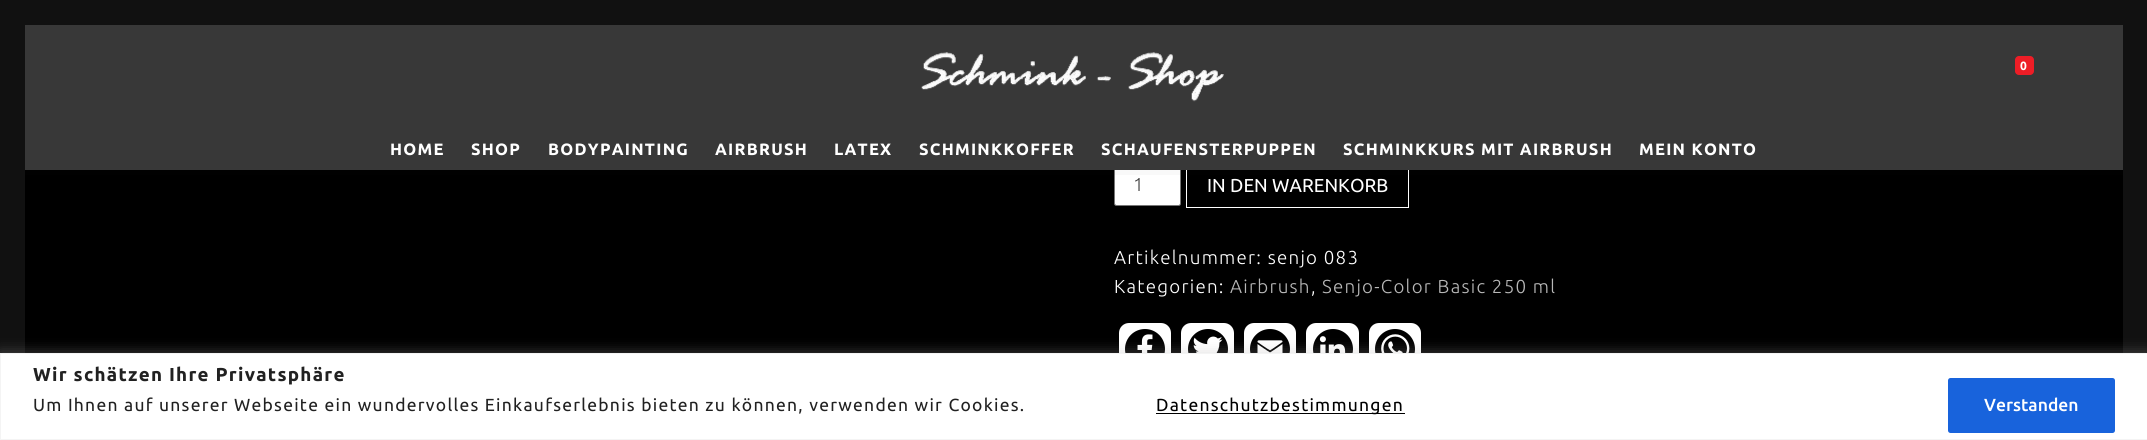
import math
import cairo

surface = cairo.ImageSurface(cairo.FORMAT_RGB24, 2147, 440)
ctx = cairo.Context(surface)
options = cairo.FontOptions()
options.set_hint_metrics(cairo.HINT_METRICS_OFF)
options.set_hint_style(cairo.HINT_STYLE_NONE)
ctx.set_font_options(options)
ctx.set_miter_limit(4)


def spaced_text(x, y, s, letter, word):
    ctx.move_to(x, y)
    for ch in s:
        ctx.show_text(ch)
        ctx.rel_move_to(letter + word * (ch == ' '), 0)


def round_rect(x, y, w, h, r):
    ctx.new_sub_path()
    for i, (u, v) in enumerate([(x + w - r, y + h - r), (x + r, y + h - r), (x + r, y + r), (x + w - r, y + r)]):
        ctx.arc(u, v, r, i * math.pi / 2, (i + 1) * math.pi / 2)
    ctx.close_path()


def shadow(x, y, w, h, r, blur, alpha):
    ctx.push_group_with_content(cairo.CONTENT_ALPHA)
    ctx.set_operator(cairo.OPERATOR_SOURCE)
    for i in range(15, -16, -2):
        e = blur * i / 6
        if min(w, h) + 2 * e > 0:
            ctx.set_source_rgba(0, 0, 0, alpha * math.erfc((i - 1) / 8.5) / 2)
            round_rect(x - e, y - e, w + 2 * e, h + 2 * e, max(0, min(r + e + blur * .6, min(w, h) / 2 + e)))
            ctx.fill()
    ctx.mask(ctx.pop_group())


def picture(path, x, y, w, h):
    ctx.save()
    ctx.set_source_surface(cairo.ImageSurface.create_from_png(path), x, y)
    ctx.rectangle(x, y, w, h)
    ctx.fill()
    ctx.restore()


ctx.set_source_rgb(0, 0, 0)
ctx.paint()
ctx.set_source_rgb(0.067, 0.067, 0.067)
ctx.rectangle(25, 0, 2098, 25)
ctx.fill()
ctx.rectangle(0, 0, 25, 353)
ctx.fill()
ctx.rectangle(2123, 0, 24, 353)
ctx.fill()
ctx.set_source_rgb(1, 1, 1)
round_rect(1114.5, 163.5, 66, 42, 2)
ctx.fill_preserve()
ctx.set_source_rgb(0.463, 0.463, 0.463)
ctx.set_line_width(1)
ctx.stroke()
ctx.rectangle(1186.5, 163.5, 222, 44)
ctx.set_source_rgb(1, 1, 1)
ctx.stroke()
ctx.set_source_rgba(0.133, 0.133, 0.133, 0.03)
ctx.new_path()
ctx.move_to(25, 170)
ctx.line_to(25, 175)
ctx.line_to(2123, 175)
ctx.line_to(2123, 30)
ctx.line_to(2122, 30)
ctx.line_to(2122, 170)
ctx.close_path()
ctx.fill()
ctx.set_source_rgb(0.22, 0.22, 0.22)
ctx.rectangle(25, 25, 2098, 145)
ctx.fill()
picture("img1.png", 921, 52, 303, 50)
ctx.set_source_rgb(0.933, 0.114, 0.149)
round_rect(2015, 56, 19, 19, 4)
ctx.fill()
ctx.select_font_face("Ubuntu", cairo.FONT_SLANT_NORMAL, cairo.FONT_WEIGHT_BOLD)
ctx.set_font_size(12)
ctx.set_source_rgb(1, 1, 1)
spaced_text(2020, 70, "0", 1.25, 0)
ctx.set_font_size(16.4)
spaced_text(390, 155, "HOME", 1.25, 0)
spaced_text(471, 155, "SHOP", 1.25, 0)
spaced_text(548, 155, "BODYPAINTING", 1.25, 0)
spaced_text(715, 155, "AIRBRUSH", 1.25, 0)
spaced_text(834, 155, "LATEX", 1.25, 0)
spaced_text(919, 155, "SCHMINKKOFFER", 1.25, 0)
spaced_text(1101, 155, "SCHAUFENSTERPUPPEN", 1.25, 0)
spaced_text(1343, 155, "SCHMINKKURS MIT AIRBRUSH", 1.25, 0)
spaced_text(1639, 155, "MEIN KONTO", 1.25, 0)
ctx.select_font_face("Ubuntu Light")
ctx.set_font_size(18.75)
ctx.set_source_rgb(0.267, 0.267, 0.267)
ctx.move_to(1133, 191)
ctx.show_text("1")
ctx.select_font_face("Ubuntu")
ctx.set_source_rgb(1, 1, 1)
ctx.move_to(1207, 192)
ctx.show_text("IN DEN WARENKORB")
ctx.select_font_face("Ubuntu Light")
spaced_text(1114, 264, "Artikelnummer: senjo 083", 1.25, 0)
spaced_text(1114, 293, "Kategorien:", 1.25, 0)
ctx.set_source_rgb(0.722, 0.722, 0.722)
spaced_text(1230, 293, "Airbrush", 1.25, 0)
ctx.set_source_rgb(1, 1, 1)
spaced_text(1311, 293, ",", 1.25, 0)
ctx.set_source_rgb(0.722, 0.722, 0.722)
spaced_text(1322, 293, "Senjo-Color Basic 250 ml", 1.25, 0)
ctx.set_source_rgb(1, 1, 1)
round_rect(1119, 323, 52, 52, 10)
ctx.fill()
ctx.set_source_rgb(0, 0, 0)
ctx.arc(1145, 349, 20, 0, 2 * math.pi)
ctx.fill()
picture("img2.png", 1137, 334, 16, 19)
ctx.set_source_rgb(1, 1, 1)
round_rect(1181, 323, 53, 52, 10)
ctx.fill()
ctx.set_source_rgb(0, 0, 0)
ctx.arc(1208, 349, 20, 0, 2 * math.pi)
ctx.fill()
picture("img3.png", 1193, 336, 30, 17)
ctx.set_source_rgb(1, 1, 1)
round_rect(1244, 323, 52, 52, 10)
ctx.fill()
ctx.set_source_rgb(0, 0, 0)
ctx.arc(1270, 349, 20, 0, 2 * math.pi)
ctx.fill()
picture("img4.png", 1257, 340, 26, 13)
ctx.set_source_rgb(1, 1, 1)
round_rect(1306, 323, 53, 52, 10)
ctx.fill()
ctx.set_source_rgb(0, 0, 0)
ctx.arc(1333, 349, 20, 0, 2 * math.pi)
ctx.fill()
picture("img5.png", 1319, 336, 27, 17)
ctx.set_source_rgb(1, 1, 1)
round_rect(1369, 323, 52, 52, 10)
ctx.fill()
ctx.set_source_rgb(0, 0, 0)
ctx.arc(1395, 349, 20, 0, 2 * math.pi)
ctx.fill()
picture("img6.png", 1381, 334, 29, 19)
ctx.set_source_rgb(0.675, 0.671, 0.671)
shadow(0, 351, 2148, 88, 0, 6, 0.3)
ctx.set_source_rgb(1, 1, 1)
ctx.rectangle(0.5, 353.5, 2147, 86)
ctx.fill_preserve()
ctx.set_source_rgb(0.957, 0.957, 0.957)
ctx.stroke()
ctx.select_font_face("Ubuntu", cairo.FONT_SLANT_NORMAL, cairo.FONT_WEIGHT_BOLD)
ctx.set_source_rgb(0.129, 0.129, 0.129)
spaced_text(33, 381, "Wir schätzen Ihre Privatsphäre", 1.25, 0)
ctx.select_font_face("Ubuntu")
ctx.set_font_size(17.5)
spaced_text(33, 411, "Um Ihnen auf unserer Webseite ein wundervolles Einkaufserlebnis bieten zu können, verwenden wir Cookies.", 1.25, 0)
ctx.set_source_rgb(0, 0, 0)
ctx.rectangle(1156, 413, 249, 1)
ctx.fill()
spaced_text(1156, 411, "Datenschutzbestimmungen", 1.25, 0)
ctx.set_source_rgb(0.094, 0.388, 0.863)
round_rect(1949.5, 379.5, 164, 52, 1)
ctx.fill_preserve()
ctx.set_line_width(3)
ctx.stroke()
ctx.select_font_face("Ubuntu Medium")
ctx.set_source_rgb(1, 1, 1)
ctx.move_to(1984, 411)
ctx.show_text("Verstanden")
surface.write_to_png("page.png")
